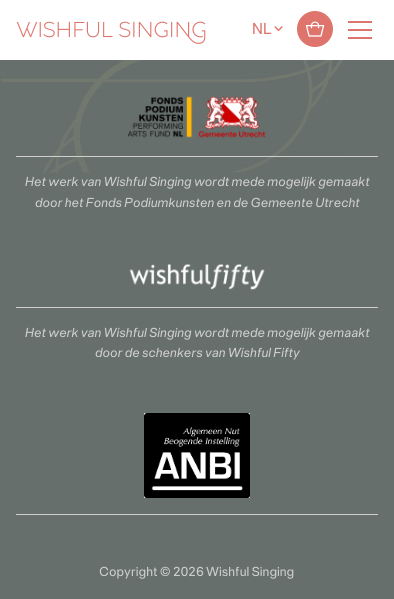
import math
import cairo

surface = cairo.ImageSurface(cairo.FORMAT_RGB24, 394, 599)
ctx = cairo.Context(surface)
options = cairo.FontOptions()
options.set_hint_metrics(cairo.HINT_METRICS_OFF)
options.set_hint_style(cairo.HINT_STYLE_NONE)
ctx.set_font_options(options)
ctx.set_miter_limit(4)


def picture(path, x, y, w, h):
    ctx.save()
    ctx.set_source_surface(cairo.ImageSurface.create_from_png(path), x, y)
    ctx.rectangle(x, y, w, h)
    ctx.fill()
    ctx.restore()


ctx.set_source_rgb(0.4, 0.435, 0.424)
ctx.paint()
ctx.set_source_rgb(1, 1, 1)
ctx.rectangle(0, 0, 394, 60)
ctx.fill()
picture("img1.png", 16, 21, 190, 23)
ctx.select_font_face("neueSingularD")
ctx.set_font_size(17)
ctx.set_source_rgb(0.875, 0.455, 0.424)
ctx.move_to(252, 34)
ctx.show_text("NL")
picture("img2.png", 274, 26, 9, 6)
picture("img3.png", 297, 11, 36, 36)
ctx.rectangle(348, 29, 24, 2)
ctx.fill()
ctx.rectangle(348, 21, 24, 2)
ctx.fill()
ctx.rectangle(348, 37, 24, 2)
ctx.fill()
picture("img4.png", 1, 60, 342, 113)
gradient = cairo.LinearGradient(197, -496, 197, 599)
gradient.add_color_stop_rgba(0, 0.4, 0.435, 0.424, 0)
gradient.add_color_stop_rgba(0.85, 0.4, 0.435, 0.424, 0.95)
ctx.set_source(gradient)
ctx.rectangle(1, 60, 342, 113)
ctx.fill()
ctx.set_source_rgb(0.812, 0.812, 0.812)
ctx.rectangle(16, 156, 362, 1)
ctx.fill()
picture("img5.png", 127, 96, 139, 42)
ctx.select_font_face("neueSingularD", cairo.FONT_SLANT_ITALIC)
ctx.set_font_size(14)
ctx.move_to(25, 186)
ctx.show_text("Het werk van Wishful Singing wordt mede mogelijk gemaakt")
ctx.move_to(35, 207)
ctx.show_text("door het Fonds Podiumkunsten en de Gemeente Utrecht")
ctx.rectangle(16, 307, 362, 1)
ctx.fill()
picture("img6.png", 129, 264, 136, 26)
ctx.move_to(25, 337)
ctx.show_text("Het werk van Wishful Singing wordt mede mogelijk gemaakt")
ctx.move_to(95, 357)
ctx.show_text("door de schenkers van Wishful Fifty")
ctx.rectangle(16, 514, 362, 1)
ctx.fill()
picture("img7.png", 144, 413, 106, 85)
ctx.select_font_face("neueSingularD")
ctx.move_to(99, 576)
ctx.show_text("Copyright © 2026 Wishful Singing")
surface.write_to_png("page.png")
